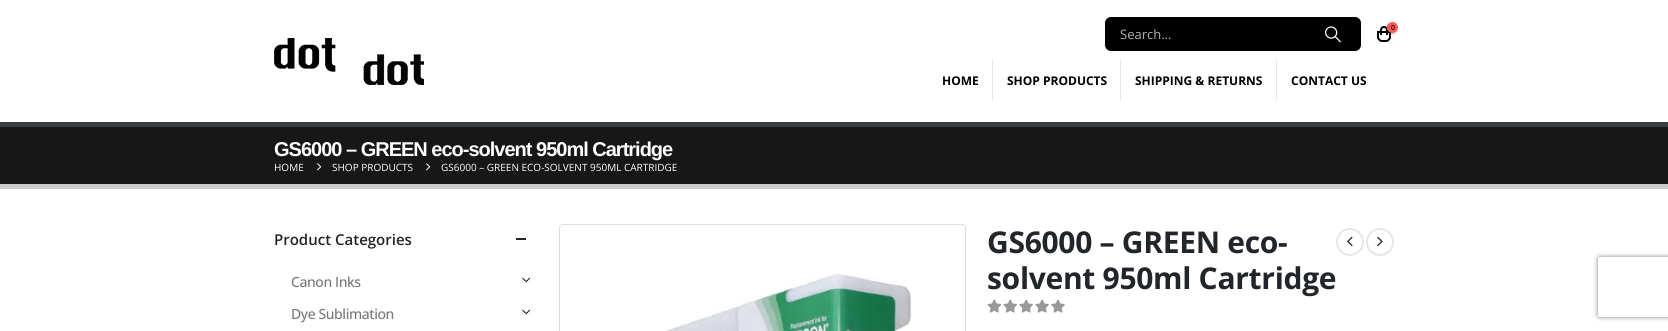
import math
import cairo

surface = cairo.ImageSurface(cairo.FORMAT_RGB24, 1668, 331)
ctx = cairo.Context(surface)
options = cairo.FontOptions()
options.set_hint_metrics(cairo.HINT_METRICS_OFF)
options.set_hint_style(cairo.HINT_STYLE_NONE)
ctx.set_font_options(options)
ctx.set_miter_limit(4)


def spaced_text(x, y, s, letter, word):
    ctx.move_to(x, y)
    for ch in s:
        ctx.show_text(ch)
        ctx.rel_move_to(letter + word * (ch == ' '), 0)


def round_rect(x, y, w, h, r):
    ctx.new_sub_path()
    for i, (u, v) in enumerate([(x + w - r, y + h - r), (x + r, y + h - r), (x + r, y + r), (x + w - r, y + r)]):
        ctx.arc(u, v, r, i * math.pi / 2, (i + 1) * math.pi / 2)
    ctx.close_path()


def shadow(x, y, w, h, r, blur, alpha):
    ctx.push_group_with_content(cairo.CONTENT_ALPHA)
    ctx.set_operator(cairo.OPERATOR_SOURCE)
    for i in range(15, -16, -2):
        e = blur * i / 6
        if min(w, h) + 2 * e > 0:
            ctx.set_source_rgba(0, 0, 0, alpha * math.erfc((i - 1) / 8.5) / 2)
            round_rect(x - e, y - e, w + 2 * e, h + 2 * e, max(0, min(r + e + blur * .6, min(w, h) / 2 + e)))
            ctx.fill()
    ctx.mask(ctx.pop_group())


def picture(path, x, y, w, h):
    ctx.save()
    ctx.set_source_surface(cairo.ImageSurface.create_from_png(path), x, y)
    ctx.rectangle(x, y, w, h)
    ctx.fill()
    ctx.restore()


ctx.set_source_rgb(1, 1, 1)
ctx.paint()
picture("img1.png", 274, 38, 150, 47)
ctx.new_path()
ctx.move_to(1378, 32)
ctx.line_to(1390, 32)
ctx.line_to(1390, 37)
ctx.curve_to(1390, 39, 1388, 41, 1386, 41)
ctx.line_to(1382, 41)
ctx.curve_to(1380, 41, 1378, 39, 1378, 37)
ctx.close_path()
ctx.set_source_rgb(0, 0, 0)
ctx.stroke()
ctx.set_fill_rule(cairo.FILL_RULE_EVEN_ODD)
ctx.new_path()
ctx.move_to(1384, 26)
ctx.curve_to(1389, 26, 1388, 32, 1388, 35)
ctx.line_to(1380, 35)
ctx.curve_to(1380, 32, 1379, 26, 1384, 26)
ctx.close_path()
ctx.move_to(1384, 28)
ctx.curve_to(1387, 28, 1386, 33, 1386, 35)
ctx.line_to(1382, 35)
ctx.curve_to(1382, 33, 1381, 28, 1384, 28)
ctx.close_path()
ctx.fill()
ctx.set_source_rgb(0, 0, 0)
shadow(1386, 23, 11, 11, 5.5, 1, 0.3)
ctx.set_source_rgb(1, 0.357, 0.357)
ctx.arc(1392.5, 27.5, 5.5, 0, 2 * math.pi)
ctx.fill()
ctx.select_font_face("Open Sans SemiBold")
ctx.set_font_size(7)
ctx.set_source_rgb(0, 0, 0)
ctx.move_to(1391, 30)
ctx.show_text("0")
round_rect(1104.5, 16.5, 257, 35, 6.5)
ctx.fill_preserve()
ctx.set_source_rgb(1, 1, 1)
ctx.set_line_width(1)
ctx.stroke()
ctx.select_font_face("Open Sans")
ctx.set_font_size(13)
ctx.set_source_rgb(0.702, 0.702, 0.702)
ctx.move_to(1120, 39)
ctx.show_text("Search…")
picture("img2.png", 1325, 26, 16, 17)
ctx.set_source_rgb(0.902, 0.902, 0.902)
ctx.rectangle(992, 60, 1, 40)
ctx.fill()
ctx.select_font_face("Open Sans", cairo.FONT_SLANT_NORMAL, cairo.FONT_WEIGHT_BOLD)
ctx.set_font_size(12)
ctx.set_source_rgb(0, 0, 0)
ctx.move_to(942, 85)
ctx.show_text("HOME")
ctx.set_source_rgb(0.902, 0.902, 0.902)
ctx.rectangle(1120, 60, 1, 40)
ctx.fill()
ctx.set_source_rgb(0, 0, 0)
ctx.move_to(1007, 85)
ctx.show_text("SHOP PRODUCTS")
ctx.set_source_rgb(0.902, 0.902, 0.902)
ctx.rectangle(1276, 60, 1, 40)
ctx.fill()
ctx.set_source_rgb(0, 0, 0)
ctx.move_to(1135, 85)
ctx.show_text("SHIPPING & RETURNS")
ctx.move_to(1291, 85)
ctx.show_text("CONTACT US")
ctx.set_source_rgb(0.09, 0.09, 0.09)
ctx.rectangle(0, 127, 1668, 57)
ctx.fill()
ctx.set_source_rgb(0.22, 0.251, 0.271)
ctx.rectangle(0, 122, 1668, 5)
ctx.fill()
ctx.set_source_rgb(0.8, 0.8, 0.8)
ctx.rectangle(0, 184, 1668, 5)
ctx.fill()
ctx.select_font_face("Liberation Sans", cairo.FONT_SLANT_NORMAL, cairo.FONT_WEIGHT_BOLD)
ctx.set_font_size(20)
ctx.set_source_rgb(1, 1, 1)
spaced_text(274, 156, "GS6000 – GREEN eco-solvent 950ml Cartridge", -1, 0)
ctx.select_font_face("Open Sans")
ctx.set_font_size(10)
ctx.move_to(274, 171)
ctx.show_text("HOME")
picture("img3.png", 317, 163, 5, 8)
ctx.move_to(332, 171)
ctx.show_text("SHOP PRODUCTS")
picture("img3.png", 426, 163, 5, 8)
ctx.move_to(441, 171)
ctx.show_text("GS6000 – GREEN ECO-SOLVENT 950ML CARTRIDGE")
ctx.select_font_face("Open Sans SemiBold")
ctx.set_font_size(15)
ctx.set_source_rgb(0.133, 0.145, 0.161)
ctx.move_to(274, 245)
ctx.show_text("Product Categories")
ctx.rectangle(516, 238, 10, 2)
ctx.fill()
ctx.select_font_face("Open Sans Medium")
ctx.set_font_size(14)
ctx.set_source_rgb(0.467, 0.467, 0.467)
spaced_text(291, 287, "Canon Inks", -0.4, 0)
picture("img4.png", 522, 277, 9, 6)
spaced_text(291, 319, "Dye Sublimation", -0.4, 0)
picture("img4.png", 522, 309, 9, 6)
round_rect(559.5, 224.5, 406, 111, 3.5)
ctx.set_source_rgb(0.867, 0.867, 0.867)
ctx.stroke()
picture("img5.png", 665, 274, 247, 57)
ctx.select_font_face("Open Sans", cairo.FONT_SLANT_NORMAL, cairo.FONT_WEIGHT_BOLD)
ctx.set_font_size(30)
ctx.set_source_rgb(0.133, 0.145, 0.161)
spaced_text(987, 253, "GS6000 – GREEN eco-", -0.3, 0)
spaced_text(987, 289, "solvent 950ml Cartridge", -0.3, 0)
ctx.new_path()
ctx.arc(1350, 242, 13, 0, 2 * math.pi)
ctx.set_source_rgb(0.906, 0.906, 0.906)
ctx.set_line_width(2)
ctx.stroke()
picture("img6.png", 1347, 236, 6, 11)
ctx.arc(1380, 242, 13, 0, 2 * math.pi)
ctx.stroke()
picture("img7.png", 1377, 236, 6, 11)
picture("img8.png", 987, 299, 78, 14)
ctx.save()
ctx.new_path()
ctx.move_to(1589, 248)
ctx.line_to(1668, 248)
ctx.line_to(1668, 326)
ctx.line_to(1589, 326)
ctx.close_path()
ctx.move_to(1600, 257)
ctx.line_to(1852, 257)
ctx.curve_to(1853, 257, 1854, 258, 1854, 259)
ctx.line_to(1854, 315)
ctx.curve_to(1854, 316, 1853, 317, 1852, 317)
ctx.line_to(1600, 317)
ctx.curve_to(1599, 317, 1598, 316, 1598, 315)
ctx.line_to(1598, 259)
ctx.curve_to(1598, 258, 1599, 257, 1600, 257)
ctx.close_path()
ctx.clip()
ctx.set_source_rgb(0.502, 0.502, 0.502)
shadow(1598, 257, 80, 60, 2, 2.5, 1)
ctx.restore()
surface.write_to_png("page.png")
